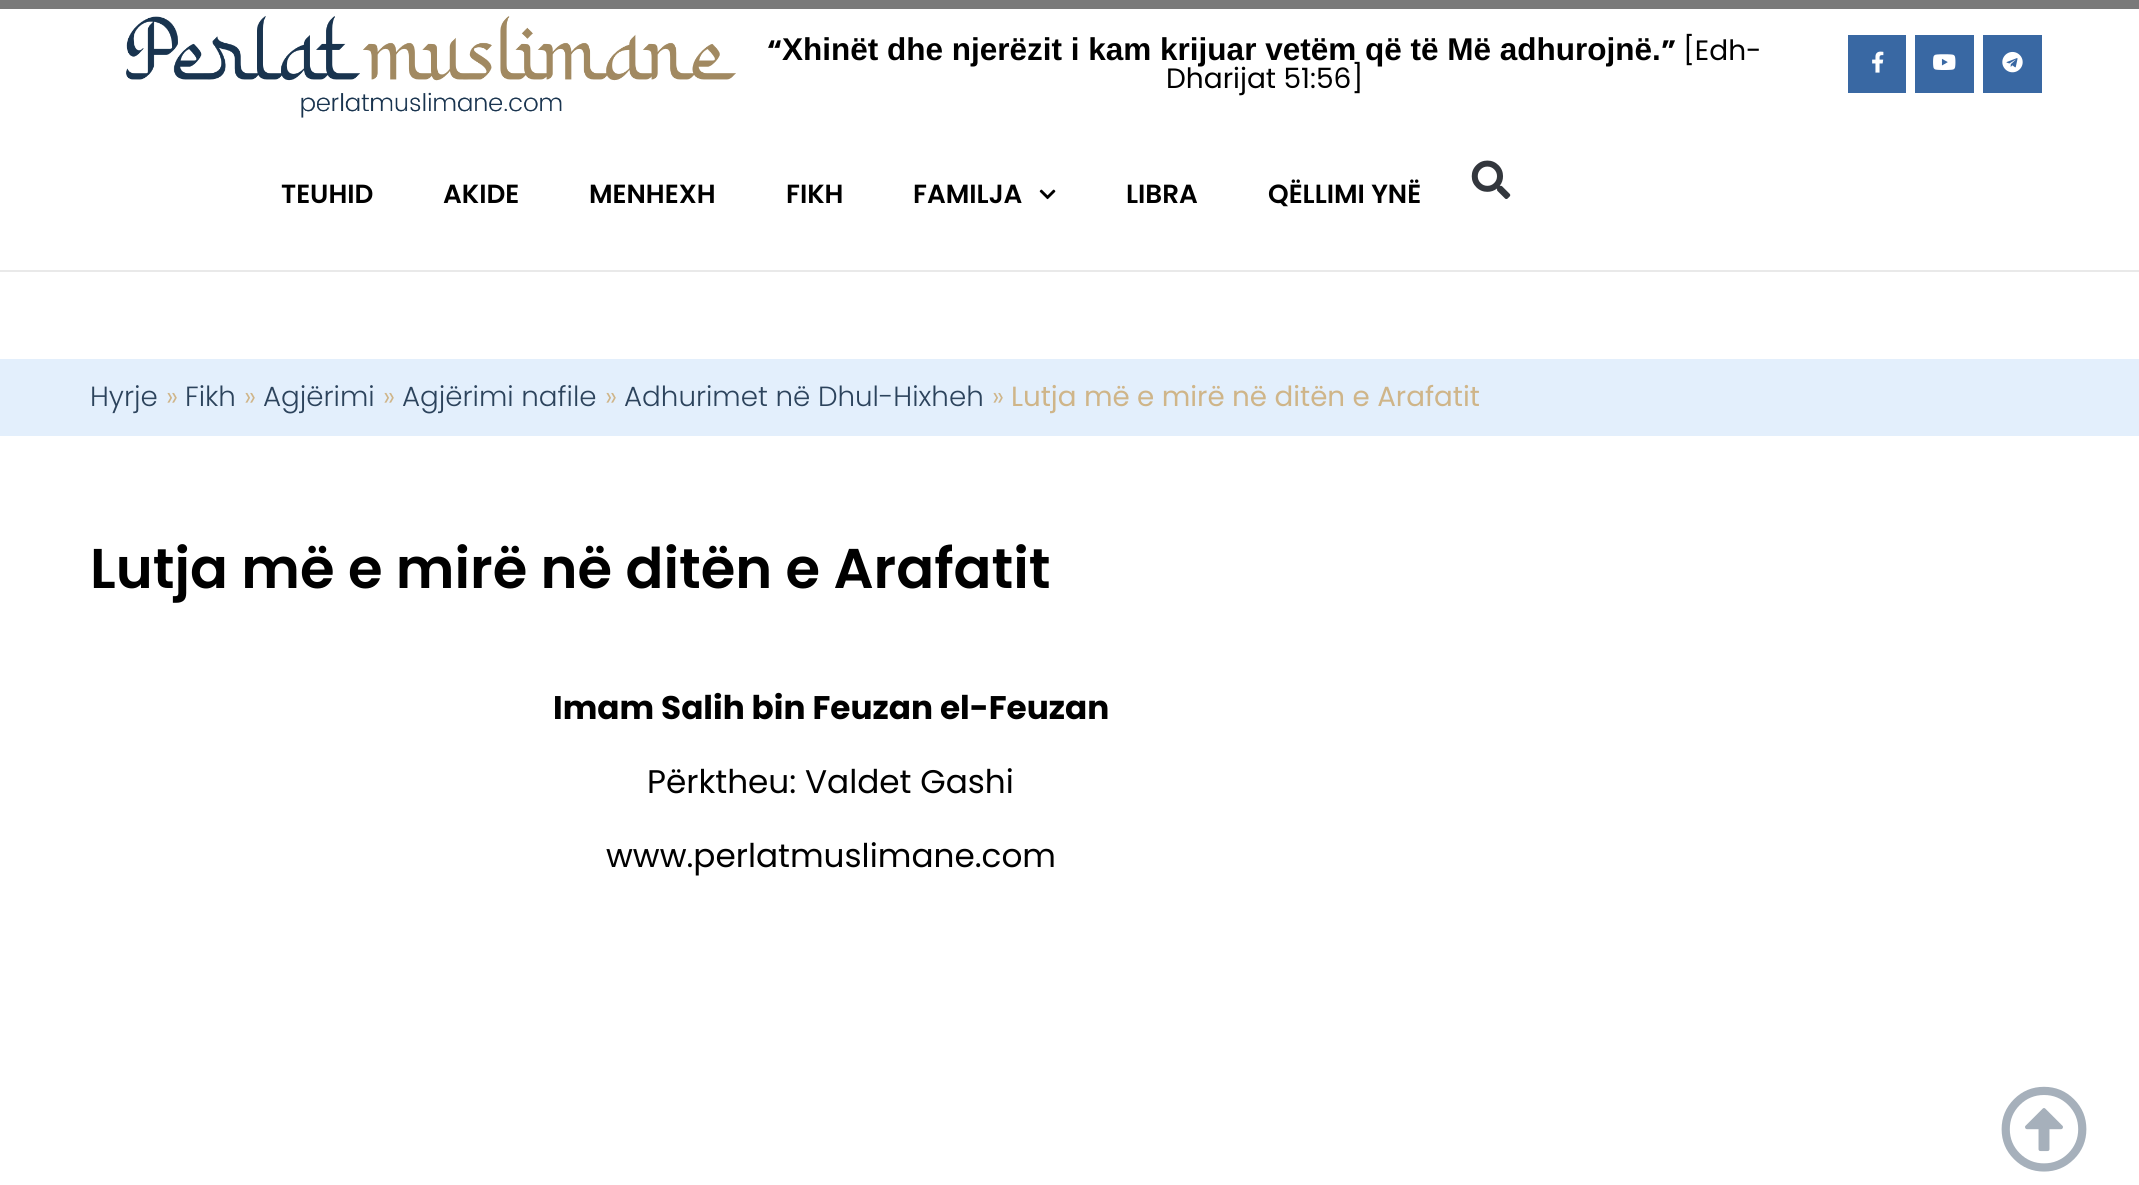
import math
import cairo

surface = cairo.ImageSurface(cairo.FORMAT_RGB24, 2139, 1185)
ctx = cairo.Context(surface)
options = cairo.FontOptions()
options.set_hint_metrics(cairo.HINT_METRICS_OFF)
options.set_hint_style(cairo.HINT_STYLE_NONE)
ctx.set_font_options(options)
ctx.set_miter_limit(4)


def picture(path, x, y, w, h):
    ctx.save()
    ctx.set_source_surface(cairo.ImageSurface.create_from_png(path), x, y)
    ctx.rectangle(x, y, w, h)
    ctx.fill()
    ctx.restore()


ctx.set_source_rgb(1, 1, 1)
ctx.paint()
ctx.set_source_rgb(0.478, 0.478, 0.478)
ctx.rectangle(0, 0, 2139, 9)
ctx.fill()
picture("img1.png", 126, 16, 610, 102)
ctx.select_font_face("Poppins", cairo.FONT_SLANT_NORMAL, cairo.FONT_WEIGHT_BOLD)
ctx.set_font_size(28)
ctx.set_source_rgb(0, 0, 0)
ctx.move_to(767, 60)
ctx.show_text("“")
ctx.select_font_face("Liberation Sans", cairo.FONT_SLANT_NORMAL, cairo.FONT_WEIGHT_BOLD)
ctx.set_font_size(31.5)
ctx.move_to(782, 60)
ctx.show_text("Xhinët dhe njerëzit i kam krijuar vetëm që të Më adhurojnë.")
ctx.select_font_face("Poppins", cairo.FONT_SLANT_NORMAL, cairo.FONT_WEIGHT_BOLD)
ctx.set_font_size(28)
ctx.move_to(1661, 60)
ctx.show_text("”")
ctx.select_font_face("Poppins")
ctx.move_to(1683, 60)
ctx.show_text("[Edh-")
ctx.move_to(1166, 88)
ctx.show_text("Dharijat 51:56]")
ctx.set_source_rgb(0.224, 0.408, 0.639)
ctx.rectangle(1848, 35, 58, 58)
ctx.fill()
picture("img2.png", 1872, 51, 12, 22)
ctx.rectangle(1915, 35, 59, 58)
ctx.fill()
picture("img3.png", 1933, 54, 23, 16)
ctx.rectangle(1983, 35, 59, 58)
ctx.fill()
picture("img4.png", 2002, 51, 21, 22)
ctx.set_source_rgb(0.914, 0.914, 0.914)
ctx.rectangle(0, 270, 2139, 2)
ctx.fill()
ctx.select_font_face("Poppins SemiBold")
ctx.set_font_size(26.25)
ctx.set_source_rgb(0, 0, 0)
ctx.move_to(281, 203)
ctx.show_text("TEUHID")
ctx.move_to(443, 203)
ctx.show_text("AKIDE")
ctx.move_to(589, 203)
ctx.show_text("MENHEXH")
ctx.move_to(786, 203)
ctx.show_text("FIKH")
ctx.move_to(913, 203)
ctx.show_text("FAMILJA")
picture("img5.png", 1039, 189, 17, 11)
ctx.move_to(1126, 203)
ctx.show_text("LIBRA")
ctx.move_to(1268, 203)
ctx.show_text("QËLLIMI YNË")
picture("img6.png", 1471, 160, 40, 39)
ctx.set_source_rgb(0.89, 0.937, 0.988)
ctx.rectangle(0, 359, 2139, 77)
ctx.fill()
ctx.select_font_face("Poppins Light")
ctx.set_font_size(27.75)
ctx.set_source_rgb(0.173, 0.263, 0.361)
ctx.move_to(90, 406)
ctx.show_text("Hyrje")
ctx.set_source_rgb(0.812, 0.71, 0.537)
ctx.move_to(166, 406)
ctx.show_text("»")
ctx.set_source_rgb(0.173, 0.263, 0.361)
ctx.move_to(185, 406)
ctx.show_text("Fikh")
ctx.set_source_rgb(0.812, 0.71, 0.537)
ctx.move_to(244, 406)
ctx.show_text("»")
ctx.set_source_rgb(0.173, 0.263, 0.361)
ctx.move_to(263, 406)
ctx.show_text("Agjërimi")
ctx.set_source_rgb(0.812, 0.71, 0.537)
ctx.move_to(383, 406)
ctx.show_text("»")
ctx.set_source_rgb(0.173, 0.263, 0.361)
ctx.move_to(402, 406)
ctx.show_text("Agjërimi nafile")
ctx.set_source_rgb(0.812, 0.71, 0.537)
ctx.move_to(605, 406)
ctx.show_text("»")
ctx.set_source_rgb(0.173, 0.263, 0.361)
ctx.move_to(624, 406)
ctx.show_text("Adhurimet në Dhul-Hixheh")
ctx.set_source_rgb(0.812, 0.71, 0.537)
ctx.move_to(992, 406)
ctx.show_text("»")
ctx.select_font_face("Poppins")
ctx.move_to(1011, 406)
ctx.show_text("Lutja më e mirë në ditën e Arafatit")
ctx.select_font_face("Poppins SemiBold")
ctx.set_font_size(56)
ctx.set_source_rgb(0, 0, 0)
ctx.move_to(90, 588)
ctx.show_text("Lutja më e mirë në ditën e Arafatit")
ctx.select_font_face("Poppins", cairo.FONT_SLANT_NORMAL, cairo.FONT_WEIGHT_BOLD)
ctx.set_font_size(32.7)
ctx.move_to(553, 719)
ctx.show_text("Imam Salih bin Feuzan el-Feuzan")
ctx.select_font_face("Poppins")
ctx.move_to(647, 793)
ctx.show_text("Përktheu: Valdet Gashi")
ctx.move_to(606, 867)
ctx.show_text("www.perlatmuslimane.com")
picture("img7.png", 2001, 1086, 86, 86)
surface.write_to_png("page.png")
